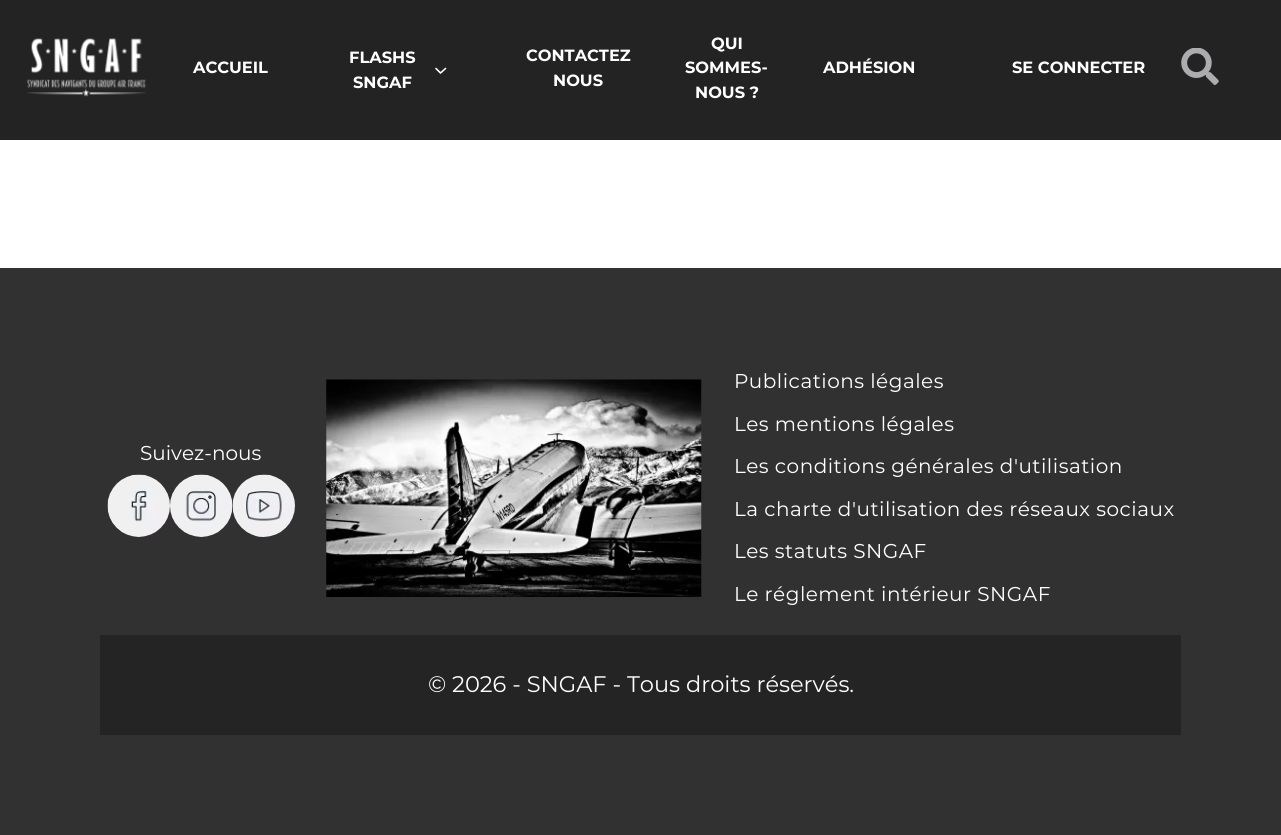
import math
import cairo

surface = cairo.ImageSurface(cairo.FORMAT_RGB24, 1281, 835)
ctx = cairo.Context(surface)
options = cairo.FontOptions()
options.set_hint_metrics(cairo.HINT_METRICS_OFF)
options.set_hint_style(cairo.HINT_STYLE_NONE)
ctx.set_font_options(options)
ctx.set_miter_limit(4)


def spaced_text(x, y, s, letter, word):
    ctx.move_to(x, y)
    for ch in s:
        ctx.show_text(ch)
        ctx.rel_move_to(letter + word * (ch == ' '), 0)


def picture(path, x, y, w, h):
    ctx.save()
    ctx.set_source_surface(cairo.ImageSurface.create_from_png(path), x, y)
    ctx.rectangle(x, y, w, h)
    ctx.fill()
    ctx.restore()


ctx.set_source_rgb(1, 1, 1)
ctx.paint()
ctx.set_source_rgb(0.137, 0.137, 0.141)
ctx.rectangle(0, 0, 1281, 140)
ctx.fill()
picture("img1.png", 26, 38, 120, 59)
ctx.select_font_face("Montserrat", cairo.FONT_SLANT_NORMAL, cairo.FONT_WEIGHT_BOLD)
ctx.set_font_size(16.25)
ctx.set_source_rgb(1, 1, 1)
ctx.move_to(193, 73)
ctx.show_text("ACCUEIL")
ctx.move_to(349, 63)
ctx.show_text("FLASHS")
ctx.new_path()
ctx.move_to(436, 68.5)
ctx.line_to(440.5, 73)
ctx.line_to(445.5, 68.5)
ctx.set_line_width(1.6)
ctx.set_line_cap(cairo.LINE_CAP_ROUND)
ctx.set_line_join(cairo.LINE_JOIN_ROUND)
ctx.stroke()
ctx.move_to(353, 88)
ctx.show_text("SNGAF")
ctx.move_to(526, 61)
ctx.show_text("CONTACTEZ")
ctx.move_to(553, 86)
ctx.show_text("NOUS")
ctx.move_to(711, 49)
ctx.show_text("QUI")
ctx.move_to(685, 73)
ctx.show_text("SOMMES-")
ctx.move_to(695, 98)
ctx.show_text("NOUS ?")
ctx.move_to(823, 73)
ctx.show_text("ADHÉSION")
ctx.move_to(1012, 73)
ctx.show_text("SE CONNECTER")
picture("img2.png", 1181, 48, 38, 37)
ctx.set_source_rgb(0.192, 0.192, 0.192)
ctx.rectangle(0, 268, 1281, 567)
ctx.fill()
ctx.select_font_face("Montserrat")
ctx.set_font_size(20)
ctx.set_source_rgb(1, 1, 1)
ctx.move_to(140, 460)
ctx.show_text("Suivez-nous")
picture("img3.png", 107, 474, 63, 63)
picture("img4.png", 170, 474, 63, 63)
picture("img5.png", 232, 474, 63, 63)
picture("img6.png", 326, 379, 376, 218)
spaced_text(734, 388, "Publications légales", 0.5, 0)
spaced_text(734, 431, "Les mentions légales", 0.5, 0)
spaced_text(734, 473, "Les conditions générales d'utilisation", 0.5, 0)
spaced_text(734, 516, "La charte d'utilisation des réseaux sociaux", 0.5, 0)
spaced_text(734, 558, "Les statuts SNGAF", 0.5, 0)
spaced_text(734, 601, "Le réglement intérieur SNGAF", 0.5, 0)
ctx.set_source_rgb(0.141, 0.141, 0.141)
ctx.rectangle(100, 635, 1081, 100)
ctx.fill()
ctx.set_font_size(22.5)
ctx.set_source_rgb(1, 1, 1)
ctx.move_to(428, 692)
ctx.show_text("© 2026 - SNGAF - Tous droits réservés.")
surface.write_to_png("page.png")
